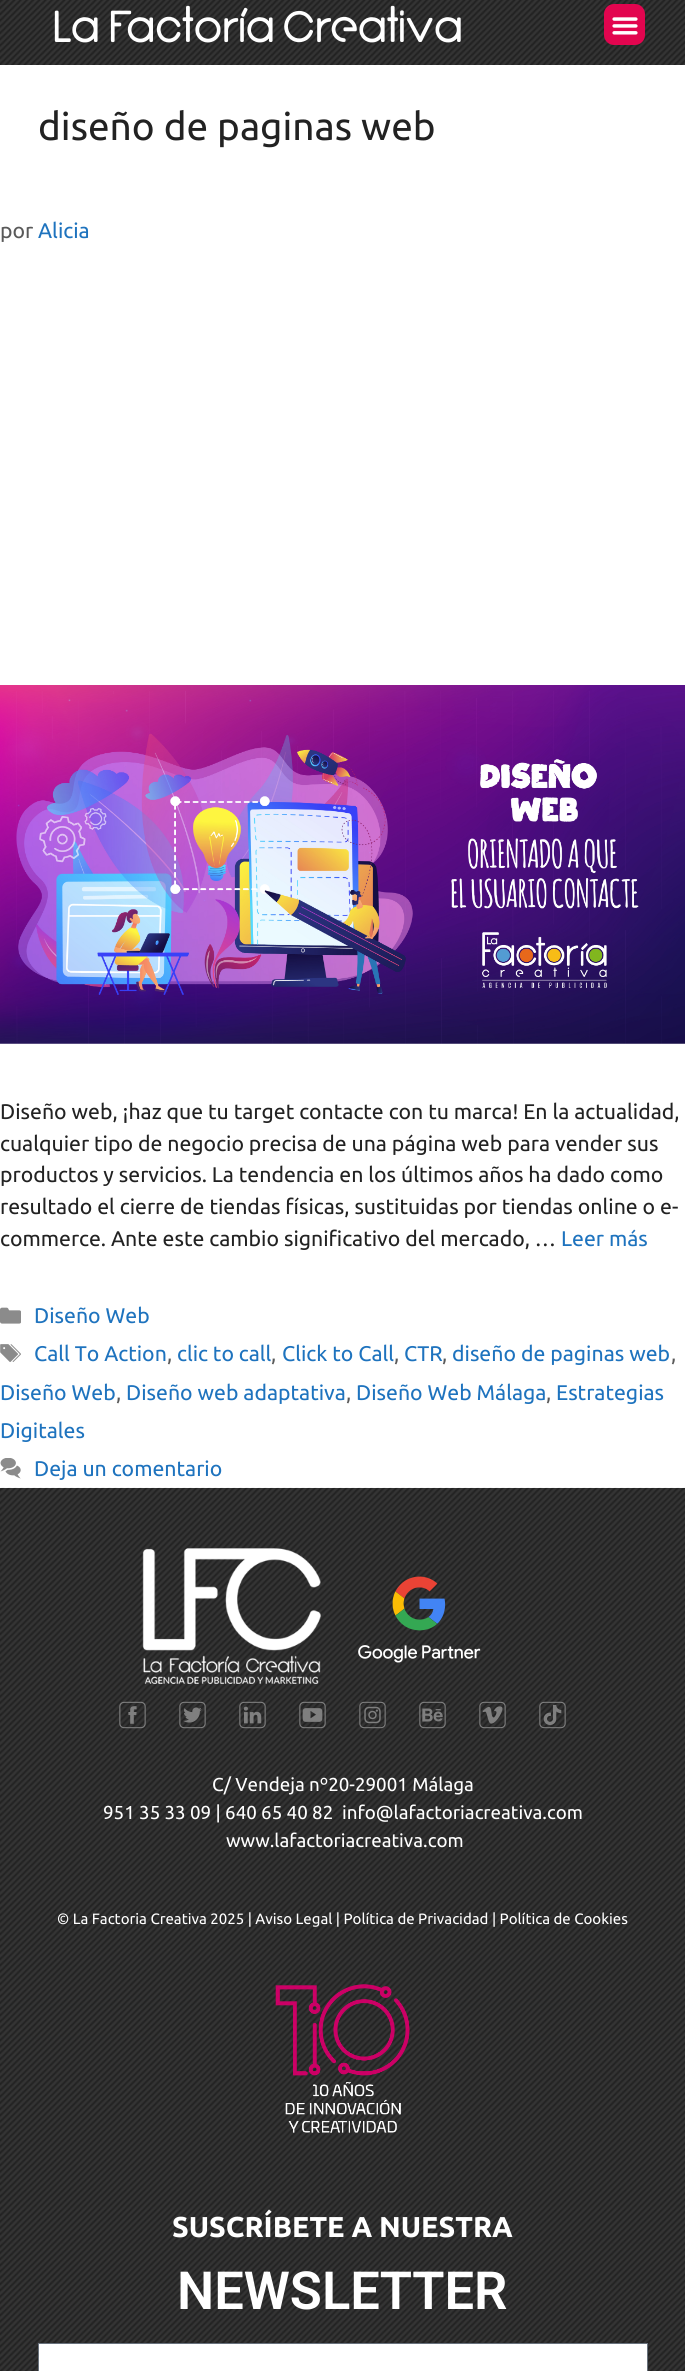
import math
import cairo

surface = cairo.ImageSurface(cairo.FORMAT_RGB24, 685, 2371)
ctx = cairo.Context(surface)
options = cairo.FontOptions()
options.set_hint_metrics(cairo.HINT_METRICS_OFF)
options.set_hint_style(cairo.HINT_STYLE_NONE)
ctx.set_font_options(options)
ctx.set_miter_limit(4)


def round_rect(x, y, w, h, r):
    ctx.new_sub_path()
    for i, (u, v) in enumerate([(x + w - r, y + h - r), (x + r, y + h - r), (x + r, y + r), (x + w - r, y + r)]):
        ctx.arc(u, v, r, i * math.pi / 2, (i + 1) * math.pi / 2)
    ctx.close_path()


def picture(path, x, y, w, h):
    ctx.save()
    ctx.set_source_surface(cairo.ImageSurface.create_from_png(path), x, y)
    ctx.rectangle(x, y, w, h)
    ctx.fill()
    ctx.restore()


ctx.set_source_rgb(1, 1, 1)
ctx.paint()
ctx.set_source_rgb(0.145, 0.145, 0.145)
ctx.rectangle(0, 0, 685, 65)
ctx.fill()
picture("img1.png", 0, 0, 685, 65)
picture("img2.png", 54, 5, 407, 38)
ctx.set_source_rgb(0.886, 0.02, 0.31)
round_rect(604, 4, 41, 41, 10)
ctx.fill()
picture("img3.png", 612, 17, 26, 18)
ctx.select_font_face("Ubuntu")
ctx.set_font_size(38.75)
ctx.set_source_rgb(0.133, 0.133, 0.133)
ctx.move_to(38, 140)
ctx.show_text("diseño de paginas web")
ctx.set_font_size(21.25)
ctx.set_source_rgb(0.349, 0.349, 0.349)
ctx.move_to(0, 238)
ctx.show_text("por")
ctx.set_source_rgb(0.118, 0.451, 0.745)
ctx.move_to(38, 238)
ctx.show_text("Alicia")
picture("img4.png", 0, 685, 685, 359)
ctx.set_source_rgb(0.133, 0.133, 0.133)
ctx.move_to(0, 1119)
ctx.show_text("Diseño web, ¡haz que tu target contacte con tu marca! En la actualidad,")
ctx.move_to(0, 1151)
ctx.show_text("cualquier tipo de negocio precisa de una página web para vender sus")
ctx.move_to(0, 1182)
ctx.show_text("productos y servicios. La tendencia en los últimos años ha dado como")
ctx.move_to(0, 1214)
ctx.show_text("resultado el cierre de tiendas físicas, sustituidas por tiendas online o e-")
ctx.move_to(0, 1246)
ctx.show_text("commerce. Ante este cambio significativo del mercado, …")
ctx.set_source_rgb(0.118, 0.451, 0.745)
ctx.move_to(561, 1246)
ctx.show_text("Leer más")
picture("img5.png", 0, 1307, 21, 17)
ctx.move_to(34, 1323)
ctx.show_text("Diseño Web")
picture("img6.png", 0, 1344, 21, 18)
ctx.move_to(34, 1361)
ctx.show_text("Call To Action")
ctx.set_source_rgb(0.349, 0.349, 0.349)
ctx.move_to(167, 1361)
ctx.show_text(",")
ctx.set_source_rgb(0.118, 0.451, 0.745)
ctx.move_to(177, 1361)
ctx.show_text("clic to call")
ctx.set_source_rgb(0.349, 0.349, 0.349)
ctx.move_to(271, 1361)
ctx.show_text(",")
ctx.set_source_rgb(0.118, 0.451, 0.745)
ctx.move_to(282, 1361)
ctx.show_text("Click to Call")
ctx.set_source_rgb(0.349, 0.349, 0.349)
ctx.move_to(394, 1361)
ctx.show_text(",")
ctx.set_source_rgb(0.118, 0.451, 0.745)
ctx.move_to(404, 1361)
ctx.show_text("CTR")
ctx.set_source_rgb(0.349, 0.349, 0.349)
ctx.move_to(442, 1361)
ctx.show_text(",")
ctx.set_source_rgb(0.118, 0.451, 0.745)
ctx.move_to(452, 1361)
ctx.show_text("diseño de paginas web")
ctx.set_source_rgb(0.349, 0.349, 0.349)
ctx.move_to(671, 1361)
ctx.show_text(",")
ctx.set_source_rgb(0.118, 0.451, 0.745)
ctx.move_to(0, 1400)
ctx.show_text("Diseño Web")
ctx.set_source_rgb(0.349, 0.349, 0.349)
ctx.move_to(116, 1400)
ctx.show_text(",")
ctx.set_source_rgb(0.118, 0.451, 0.745)
ctx.move_to(126, 1400)
ctx.show_text("Diseño web adaptativa")
ctx.set_source_rgb(0.349, 0.349, 0.349)
ctx.move_to(346, 1400)
ctx.show_text(",")
ctx.set_source_rgb(0.118, 0.451, 0.745)
ctx.move_to(356, 1400)
ctx.show_text("Diseño Web Málaga")
ctx.set_source_rgb(0.349, 0.349, 0.349)
ctx.move_to(546, 1400)
ctx.show_text(",")
ctx.set_source_rgb(0.118, 0.451, 0.745)
ctx.move_to(556, 1400)
ctx.show_text("Estrategias")
ctx.move_to(0, 1438)
ctx.show_text("Digitales")
picture("img7.png", 0, 1458, 21, 21)
ctx.move_to(34, 1476)
ctx.show_text("Deja un comentario")
ctx.set_source_rgb(0.145, 0.145, 0.145)
ctx.rectangle(0, 1488, 685, 883)
ctx.fill()
picture("img8.png", 0, 1487, 685, 884)
picture("img9.png", 142, 1548, 179, 136)
picture("img10.png", 358, 1576, 123, 87)
picture("img11.png", 119, 1701, 27, 28)
picture("img12.png", 179, 1701, 27, 28)
picture("img13.png", 239, 1701, 27, 28)
picture("img14.png", 299, 1701, 27, 28)
picture("img15.png", 359, 1701, 27, 28)
picture("img16.png", 419, 1701, 27, 28)
picture("img17.png", 479, 1701, 27, 28)
picture("img18.png", 539, 1701, 27, 28)
ctx.set_font_size(18.75)
ctx.set_source_rgb(1, 1, 1)
ctx.move_to(212, 1791)
ctx.show_text("C/ Vendeja nº20-29001 Málaga")
ctx.move_to(103, 1819)
ctx.show_text("951 35 33 09 | 640 65 40 82")
ctx.move_to(342, 1819)
ctx.show_text("info@lafactoriacreativa.com")
ctx.move_to(226, 1847)
ctx.show_text("www.lafactoriacreativa.com")
ctx.set_font_size(15)
ctx.move_to(57, 1924)
ctx.show_text("© La Factoria Creativa 2025 | Aviso Legal | Política de Privacidad | Política de Cookies")
picture("img19.png", 275, 1984, 135, 149)
ctx.select_font_face("Ubuntu", cairo.FONT_SLANT_NORMAL, cairo.FONT_WEIGHT_BOLD)
ctx.set_font_size(28.75)
ctx.move_to(172, 2237)
ctx.show_text("SUSCRÍBETE A NUESTRA")
ctx.select_font_face("Roboto SemiBold")
ctx.set_font_size(52.5)
ctx.move_to(177, 2309)
ctx.show_text("NEWSLETTER")
ctx.rectangle(38.5, 2343.5, 609, 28)
ctx.fill_preserve()
ctx.set_source_rgb(0.412, 0.447, 0.49)
ctx.set_line_width(1)
ctx.stroke()
surface.write_to_png("page.png")
